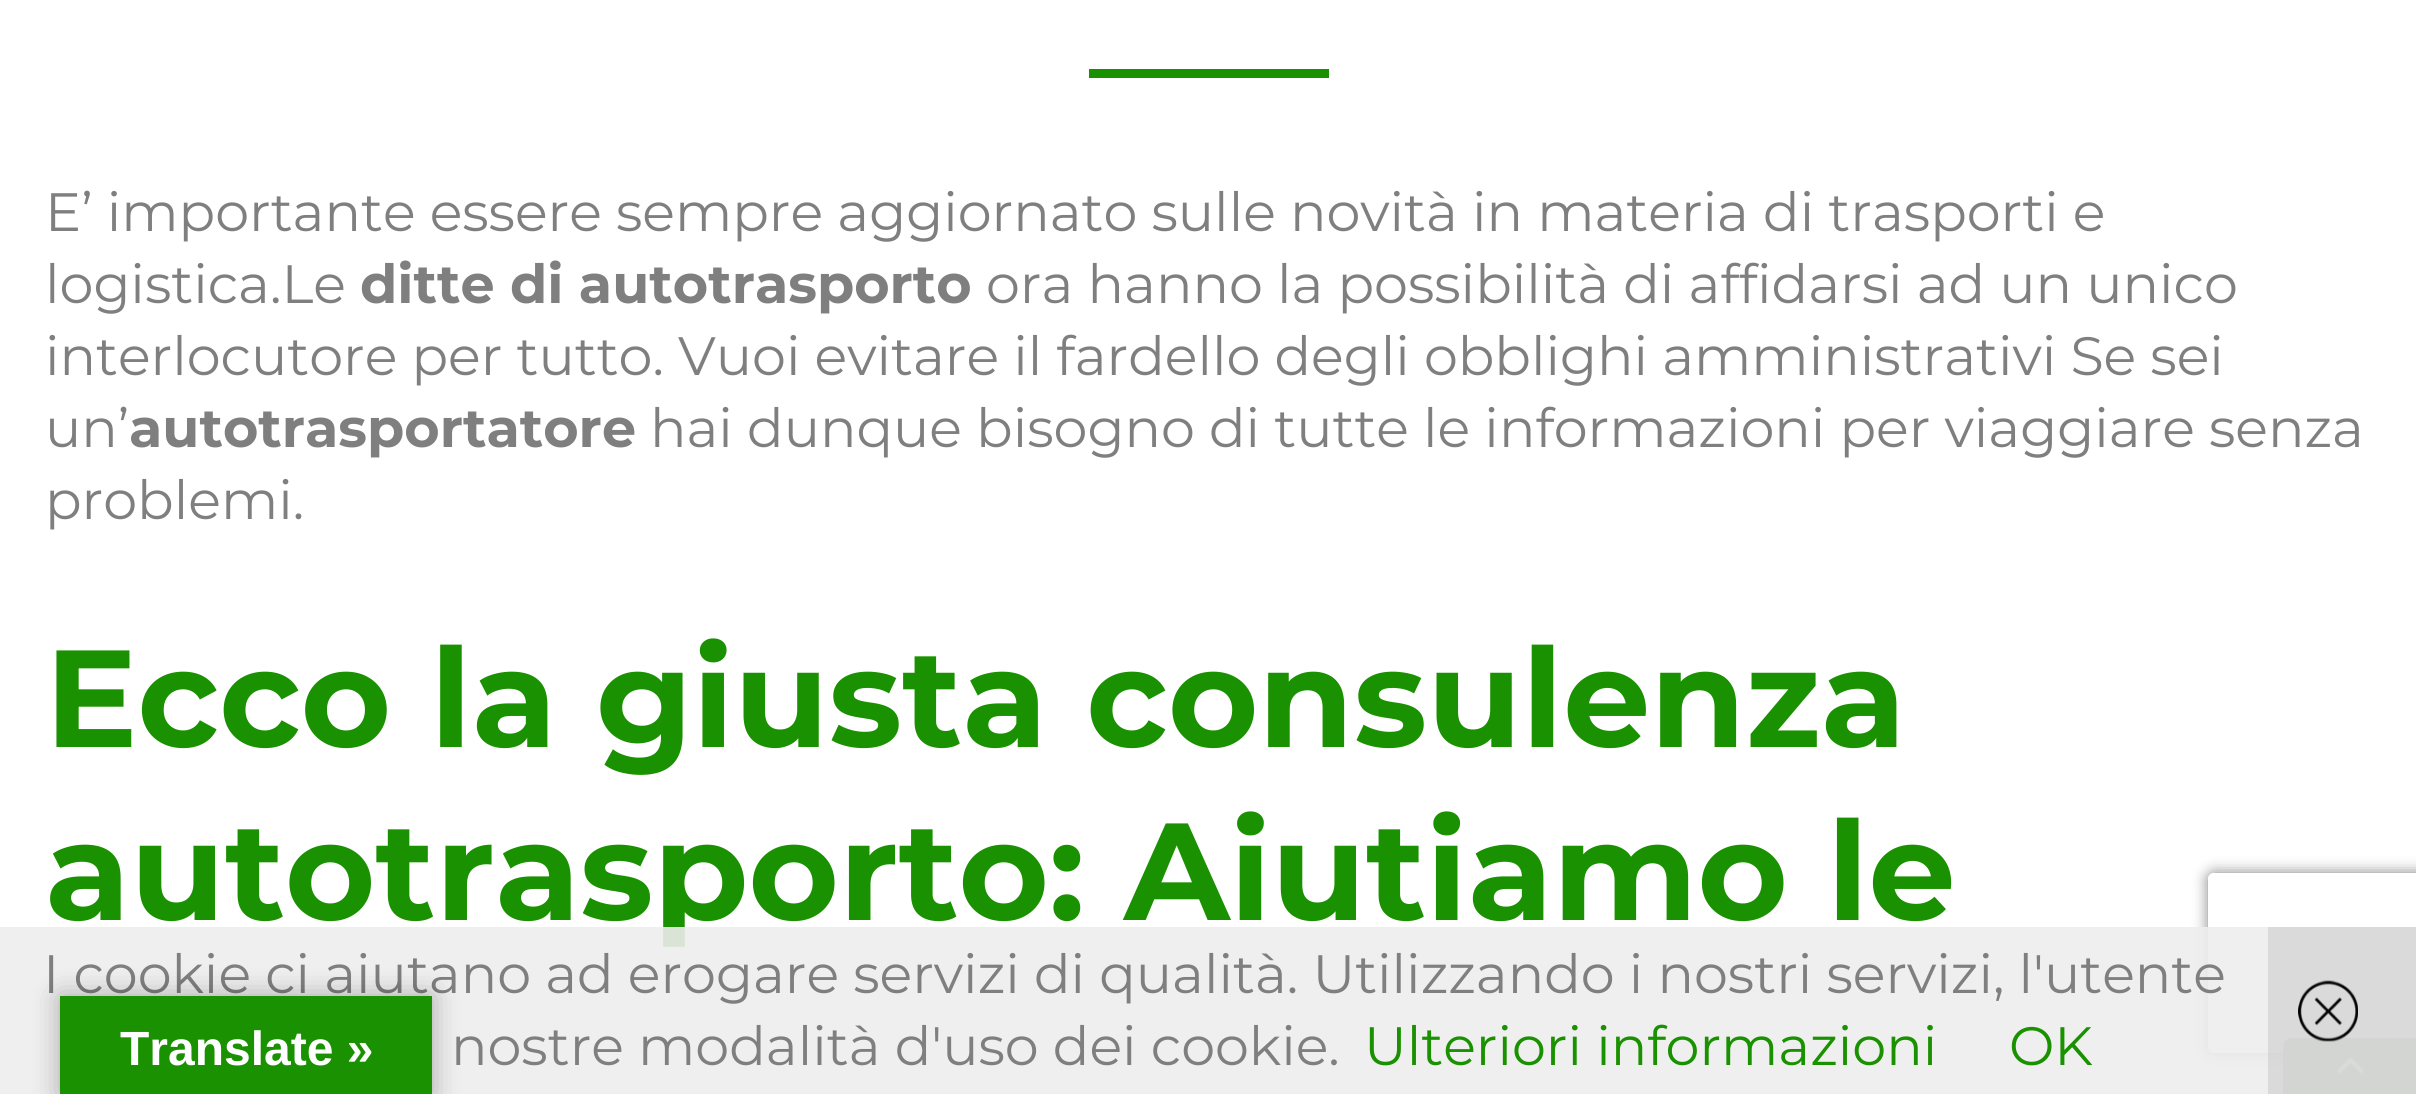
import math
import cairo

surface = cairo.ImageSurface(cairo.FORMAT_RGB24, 2416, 1094)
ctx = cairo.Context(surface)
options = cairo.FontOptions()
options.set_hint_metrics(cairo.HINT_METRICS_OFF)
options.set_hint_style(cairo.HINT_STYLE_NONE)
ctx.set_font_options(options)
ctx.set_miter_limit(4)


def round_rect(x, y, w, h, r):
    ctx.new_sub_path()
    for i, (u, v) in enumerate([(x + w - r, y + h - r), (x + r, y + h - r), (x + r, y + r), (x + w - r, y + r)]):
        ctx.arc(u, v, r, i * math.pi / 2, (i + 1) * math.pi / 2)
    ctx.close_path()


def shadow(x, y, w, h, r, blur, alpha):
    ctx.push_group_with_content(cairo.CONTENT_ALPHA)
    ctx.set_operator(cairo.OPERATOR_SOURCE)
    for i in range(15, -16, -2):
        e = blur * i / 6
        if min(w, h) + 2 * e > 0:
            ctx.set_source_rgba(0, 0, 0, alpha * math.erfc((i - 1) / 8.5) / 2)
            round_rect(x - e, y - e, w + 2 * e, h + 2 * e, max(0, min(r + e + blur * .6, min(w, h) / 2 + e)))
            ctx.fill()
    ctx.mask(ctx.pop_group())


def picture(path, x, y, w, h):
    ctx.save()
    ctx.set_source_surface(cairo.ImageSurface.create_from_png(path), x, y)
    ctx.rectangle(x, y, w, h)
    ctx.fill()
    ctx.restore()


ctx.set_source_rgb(1, 1, 1)
ctx.paint()
ctx.set_source_rgb(0.102, 0.569, 0)
ctx.rectangle(1089, 69, 240, 9)
ctx.fill()
ctx.select_font_face("Montserrat")
ctx.set_font_size(54)
ctx.set_source_rgb(0.498, 0.498, 0.498)
ctx.move_to(45, 231)
ctx.show_text("E’ importante essere sempre aggiornato sulle novità in materia di trasporti e")
ctx.move_to(45, 303)
ctx.show_text("logistica.Le")
ctx.select_font_face("Montserrat", cairo.FONT_SLANT_NORMAL, cairo.FONT_WEIGHT_BOLD)
ctx.move_to(360, 303)
ctx.show_text("ditte di autotrasporto")
ctx.select_font_face("Montserrat")
ctx.move_to(986, 303)
ctx.show_text("ora hanno la possibilità di affidarsi ad un unico")
ctx.move_to(45, 375)
ctx.show_text("interlocutore per tutto. Vuoi evitare il fardello degli obblighi amministrativi Se sei")
ctx.move_to(45, 447)
ctx.show_text("un’")
ctx.select_font_face("Montserrat", cairo.FONT_SLANT_NORMAL, cairo.FONT_WEIGHT_BOLD)
ctx.move_to(129, 447)
ctx.show_text("autotrasportatore")
ctx.select_font_face("Montserrat")
ctx.move_to(650, 447)
ctx.show_text("hai dunque bisogno di tutte le informazioni per viaggiare senza")
ctx.move_to(45, 519)
ctx.show_text("problemi.")
ctx.select_font_face("Montserrat", cairo.FONT_SLANT_NORMAL, cairo.FONT_WEIGHT_BOLD)
ctx.set_font_size(138)
ctx.set_source_rgb(0.102, 0.569, 0)
ctx.move_to(45, 747)
ctx.show_text("Ecco la giusta consulenza")
ctx.move_to(45, 920)
ctx.show_text("autotrasporto: Aiutiamo le")
ctx.save()
ctx.set_fill_rule(cairo.FILL_RULE_EVEN_ODD)
ctx.new_path()
ctx.move_to(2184, 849)
ctx.line_to(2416, 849)
ctx.line_to(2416, 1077)
ctx.line_to(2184, 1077)
ctx.close_path()
ctx.move_to(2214, 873)
ctx.line_to(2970, 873)
ctx.curve_to(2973.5, 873, 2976, 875.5, 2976, 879)
ctx.line_to(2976, 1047)
ctx.curve_to(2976, 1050.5, 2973.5, 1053, 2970, 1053)
ctx.line_to(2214, 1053)
ctx.curve_to(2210.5, 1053, 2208, 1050.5, 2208, 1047)
ctx.line_to(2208, 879)
ctx.curve_to(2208, 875.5, 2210.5, 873, 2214, 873)
ctx.close_path()
ctx.clip()
ctx.set_source_rgb(0.502, 0.502, 0.502)
shadow(2208, 873, 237, 180, 6, 7.5, 1)
ctx.restore()
ctx.set_source_rgb(0.318, 0.569, 0.263)
ctx.new_path()
ctx.move_to(2292, 1038)
ctx.line_to(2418, 1038)
ctx.line_to(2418, 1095)
ctx.line_to(2283, 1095)
ctx.line_to(2283, 1047)
ctx.curve_to(2283, 1042, 2287, 1038, 2292, 1038)
ctx.close_path()
ctx.fill()
ctx.set_source_rgb(1, 1, 1)
ctx.new_path()
ctx.move_to(2350.5, 1057)
ctx.line_to(2364, 1070.5)
ctx.line_to(2361, 1073.5)
ctx.line_to(2350.5, 1063)
ctx.line_to(2340, 1073.5)
ctx.line_to(2337, 1070.5)
ctx.close_path()
ctx.fill()
ctx.set_source_rgba(0.933, 0.933, 0.933, 0.9)
ctx.rectangle(0, 927, 2416, 167)
ctx.fill()
ctx.select_font_face("Montserrat")
ctx.set_font_size(54)
ctx.set_source_rgb(0.498, 0.498, 0.498)
ctx.move_to(43, 993)
ctx.show_text("I cookie ci aiutano ad erogare servizi di qualità. Utilizzando i nostri servizi, l'utente")
ctx.move_to(451, 1065)
ctx.show_text("nostre modalità d'uso dei cookie.")
ctx.set_source_rgb(0.102, 0.569, 0)
ctx.move_to(1364, 1065)
ctx.show_text("Ulteriori informazioni")
ctx.move_to(2009, 1065)
ctx.show_text("OK")
ctx.set_source_rgba(0.8, 0.8, 0.8, 0.6)
ctx.rectangle(2268, 927, 148, 167)
ctx.fill()
picture("img1.png", 2298, 980, 60, 62)
ctx.set_source_rgb(0, 0, 0)
shadow(60, 996, 372, 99, 0, 13.5, 0.3)
ctx.set_source_rgb(0.102, 0.569, 0)
ctx.rectangle(60, 996, 372, 98)
ctx.fill()
ctx.select_font_face("Liberation Sans", cairo.FONT_SLANT_NORMAL, cairo.FONT_WEIGHT_BOLD)
ctx.set_font_size(48)
ctx.set_source_rgb(1, 1, 1)
ctx.move_to(120, 1065)
ctx.show_text("Translate »")
surface.write_to_png("page.png")
